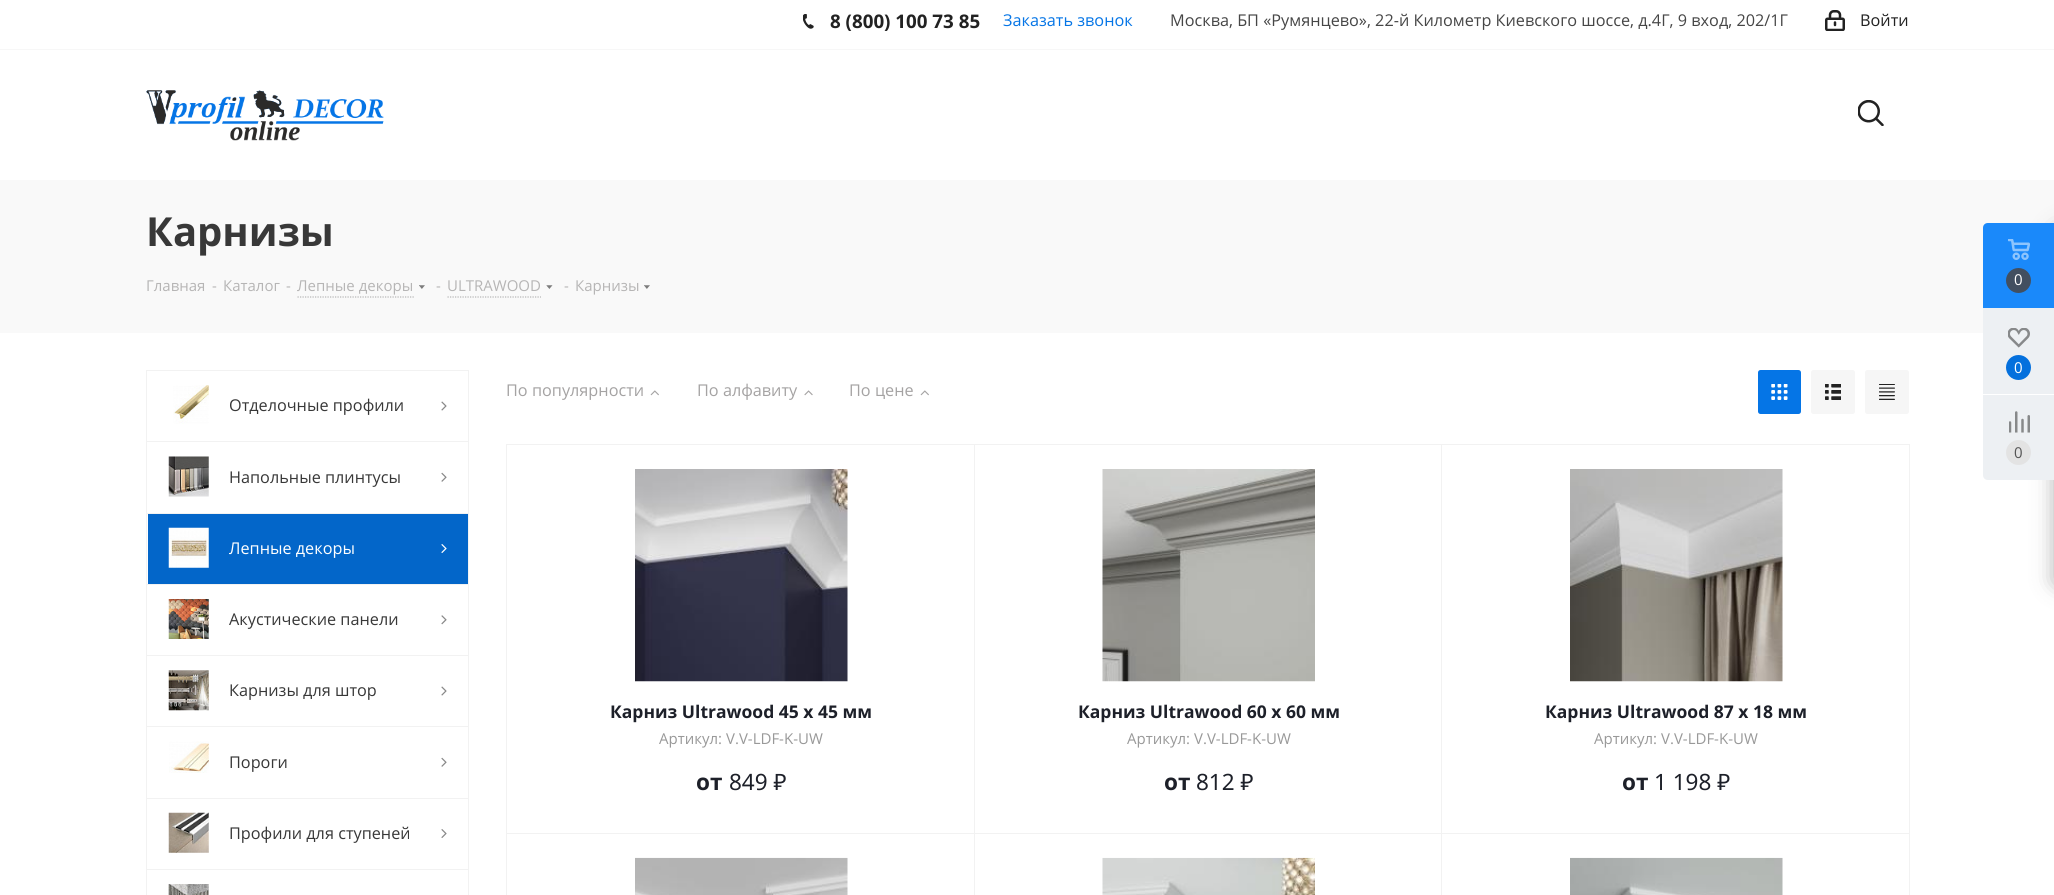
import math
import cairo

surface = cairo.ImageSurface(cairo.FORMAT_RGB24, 2054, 895)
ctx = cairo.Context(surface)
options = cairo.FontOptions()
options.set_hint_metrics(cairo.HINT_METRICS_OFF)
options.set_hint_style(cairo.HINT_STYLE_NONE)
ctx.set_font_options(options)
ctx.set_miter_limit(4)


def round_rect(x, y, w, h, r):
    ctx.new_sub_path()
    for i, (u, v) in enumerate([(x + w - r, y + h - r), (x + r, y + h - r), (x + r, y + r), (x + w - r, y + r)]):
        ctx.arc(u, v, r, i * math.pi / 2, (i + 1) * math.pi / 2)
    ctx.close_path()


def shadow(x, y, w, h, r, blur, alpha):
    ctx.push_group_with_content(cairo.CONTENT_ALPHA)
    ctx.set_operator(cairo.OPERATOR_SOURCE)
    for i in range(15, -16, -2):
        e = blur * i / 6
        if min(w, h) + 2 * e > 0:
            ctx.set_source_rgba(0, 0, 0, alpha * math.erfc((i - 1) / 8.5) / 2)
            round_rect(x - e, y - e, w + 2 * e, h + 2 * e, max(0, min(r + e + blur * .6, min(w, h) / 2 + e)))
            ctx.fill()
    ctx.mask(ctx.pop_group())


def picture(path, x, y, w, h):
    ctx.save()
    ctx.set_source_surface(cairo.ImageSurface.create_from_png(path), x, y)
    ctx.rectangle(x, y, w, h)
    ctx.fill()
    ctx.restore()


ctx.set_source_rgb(1, 1, 1)
ctx.paint()
ctx.set_source_rgb(0.965, 0.965, 0.965)
ctx.rectangle(0, 49, 2054, 1)
ctx.fill()
picture("img1.png", 803, 14, 11, 15)
ctx.select_font_face("Open Sans", cairo.FONT_SLANT_NORMAL, cairo.FONT_WEIGHT_BOLD)
ctx.set_font_size(18.75)
ctx.set_source_rgb(0.133, 0.133, 0.133)
ctx.move_to(830, 28)
ctx.show_text("8 (800) 100 73 85")
ctx.select_font_face("Open Sans")
ctx.set_font_size(16.25)
ctx.set_source_rgb(0.02, 0.459, 0.902)
ctx.move_to(1003, 26)
ctx.show_text("Заказать звонок")
ctx.set_source_rgb(0.275, 0.275, 0.275)
ctx.move_to(1170, 26)
ctx.show_text("Москва, БП «Румянцево», 22-й Километр Киевского шоссе, д.4Г, 9 вход, 202/1Г")
picture("img2.png", 1825, 10, 20, 21)
ctx.set_source_rgb(0.133, 0.133, 0.133)
ctx.move_to(1860, 26)
ctx.show_text("Войти")
picture("img3.png", 146, 90, 238, 51)
picture("img4.png", 1858, 100, 26, 26)
ctx.set_source_rgb(0.976, 0.976, 0.976)
ctx.rectangle(0, 180, 2054, 153)
ctx.fill()
ctx.select_font_face("Open Sans", cairo.FONT_SLANT_NORMAL, cairo.FONT_WEIGHT_BOLD)
ctx.set_font_size(40)
ctx.set_source_rgb(0.22, 0.22, 0.22)
ctx.move_to(146, 246)
ctx.show_text("Карнизы")
ctx.select_font_face("Open Sans")
ctx.set_font_size(15)
ctx.set_source_rgb(0.714, 0.71, 0.71)
ctx.move_to(146, 291)
ctx.show_text("Главная")
ctx.move_to(212, 291)
ctx.show_text("-")
ctx.move_to(223, 291)
ctx.show_text("Каталог")
ctx.move_to(286, 291)
ctx.show_text("-")
ctx.move_to(297, 291)
ctx.show_text("Лепные декоры")
ctx.new_path()
ctx.move_to(297.5, 297)
ctx.line_to(414, 297)
ctx.set_source_rgb(0.706, 0.706, 0.706)
ctx.set_line_width(1.2)
ctx.set_dash([1.25, 1.25])
ctx.stroke()
picture("img5.png", 419, 285, 6, 4)
ctx.set_source_rgb(0.714, 0.71, 0.71)
ctx.move_to(436, 291)
ctx.show_text("-")
ctx.move_to(447, 291)
ctx.show_text("ULTRAWOOD")
ctx.new_path()
ctx.move_to(447.5, 297)
ctx.line_to(541, 297)
ctx.set_source_rgb(0.706, 0.706, 0.706)
ctx.stroke()
picture("img6.png", 546, 285, 7, 4)
ctx.set_source_rgb(0.714, 0.71, 0.71)
ctx.move_to(564, 291)
ctx.show_text("-")
ctx.move_to(575, 291)
ctx.show_text("Карнизы")
picture("img5.png", 644, 285, 6, 4)
ctx.set_source_rgb(0.949, 0.949, 0.949)
ctx.rectangle(146, 370, 323, 1)
ctx.fill()
ctx.rectangle(468, 370, 1, 71)
ctx.fill()
ctx.rectangle(146, 370, 1, 71)
ctx.fill()
picture("img7.png", 173, 385, 36, 39)
ctx.set_font_size(16.25)
ctx.set_source_rgb(0.22, 0.22, 0.22)
ctx.move_to(229, 411)
ctx.show_text("Отделочные профили")
picture("img8.png", 441, 401, 6, 10)
ctx.set_source_rgb(0.949, 0.949, 0.949)
ctx.rectangle(146, 441, 323, 1)
ctx.fill()
ctx.rectangle(468, 441, 1, 72)
ctx.fill()
ctx.rectangle(146, 441, 1, 72)
ctx.fill()
picture("img9.png", 168, 456, 41, 41)
ctx.set_source_rgb(0.22, 0.22, 0.22)
ctx.move_to(229, 483)
ctx.show_text("Напольные плинтусы")
picture("img10.png", 441, 472, 6, 10)
ctx.set_source_rgb(0.012, 0.4, 0.788)
ctx.rectangle(148, 514, 320, 70)
ctx.fill()
ctx.set_source_rgb(0.949, 0.949, 0.949)
ctx.rectangle(146, 513, 323, 1)
ctx.fill()
ctx.rectangle(468, 513, 1, 71)
ctx.fill()
ctx.rectangle(146, 513, 1, 71)
ctx.fill()
picture("img11.png", 168, 527, 41, 41)
ctx.set_source_rgb(1, 1, 1)
ctx.move_to(229, 554)
ctx.show_text("Лепные декоры")
picture("img12.png", 441, 544, 6, 9)
ctx.set_source_rgb(0.949, 0.949, 0.949)
ctx.rectangle(146, 584, 323, 1)
ctx.fill()
ctx.rectangle(468, 584, 1, 71)
ctx.fill()
ctx.rectangle(146, 584, 1, 71)
ctx.fill()
picture("img13.png", 168, 599, 41, 40)
ctx.set_source_rgb(0.22, 0.22, 0.22)
ctx.move_to(229, 625)
ctx.show_text("Акустические панели")
picture("img14.png", 441, 615, 6, 10)
ctx.set_source_rgb(0.949, 0.949, 0.949)
ctx.rectangle(146, 655, 323, 1)
ctx.fill()
ctx.rectangle(468, 655, 1, 71)
ctx.fill()
ctx.rectangle(146, 655, 1, 71)
ctx.fill()
picture("img15.png", 168, 670, 41, 41)
ctx.set_source_rgb(0.22, 0.22, 0.22)
ctx.move_to(229, 696)
ctx.show_text("Карнизы для штор")
picture("img8.png", 441, 686, 6, 10)
ctx.set_source_rgb(0.949, 0.949, 0.949)
ctx.rectangle(146, 726, 323, 1)
ctx.fill()
ctx.rectangle(468, 726, 1, 72)
ctx.fill()
ctx.rectangle(146, 726, 1, 72)
ctx.fill()
picture("img16.png", 169, 741, 40, 32)
ctx.set_source_rgb(0.22, 0.22, 0.22)
ctx.move_to(229, 768)
ctx.show_text("Пороги")
picture("img10.png", 441, 757, 6, 10)
ctx.set_source_rgb(0.949, 0.949, 0.949)
ctx.rectangle(146, 798, 323, 1)
ctx.fill()
ctx.rectangle(468, 798, 1, 71)
ctx.fill()
ctx.rectangle(146, 798, 1, 71)
ctx.fill()
picture("img17.png", 168, 812, 41, 41)
ctx.set_source_rgb(0.22, 0.22, 0.22)
ctx.move_to(229, 839)
ctx.show_text("Профили для ступеней")
picture("img18.png", 441, 829, 6, 9)
ctx.set_source_rgb(0.949, 0.949, 0.949)
ctx.rectangle(146, 869, 323, 1)
ctx.fill()
ctx.rectangle(468, 869, 1, 26)
ctx.fill()
ctx.rectangle(146, 869, 1, 26)
ctx.fill()
picture("img19.png", 168, 884, 41, 11)
ctx.set_source_rgb(0.647, 0.639, 0.639)
ctx.move_to(506, 396)
ctx.show_text("По популярности")
picture("img20.png", 650, 390, 9, 6)
ctx.move_to(697, 396)
ctx.show_text("По алфавиту")
picture("img21.png", 804, 390, 9, 6)
ctx.move_to(849, 396)
ctx.show_text("По цене")
picture("img20.png", 920, 390, 9, 6)
ctx.set_source_rgb(0.02, 0.459, 0.902)
round_rect(1758, 370, 43, 44, 2.5)
ctx.fill()
picture("img22.png", 1771, 384, 17, 16)
ctx.set_source_rgb(0.961, 0.961, 0.961)
round_rect(1811, 370, 44, 44, 2.5)
ctx.fill()
picture("img23.png", 1825, 384, 16, 16)
round_rect(1865, 370, 44, 44, 2.5)
ctx.fill()
picture("img24.png", 1879, 384, 16, 16)
ctx.rectangle(506.5, 444.5, 468, 389)
ctx.set_source_rgb(0.949, 0.949, 0.949)
ctx.set_line_width(1)
ctx.set_dash([])
ctx.stroke()
picture("img25.png", 635, 469, 213, 213)
ctx.select_font_face("Open Sans", cairo.FONT_SLANT_NORMAL, cairo.FONT_WEIGHT_BOLD)
ctx.set_font_size(17.5)
ctx.set_source_rgb(0.114, 0.125, 0.161)
ctx.move_to(610, 718)
ctx.show_text("Карниз Ultrawood 45 x 45 мм")
ctx.select_font_face("Open Sans")
ctx.set_font_size(15)
ctx.set_source_rgb(0.6, 0.6, 0.6)
ctx.move_to(659, 744)
ctx.show_text("Артикул: V.V-LDF-K-UW")
ctx.select_font_face("Open Sans", cairo.FONT_SLANT_NORMAL, cairo.FONT_WEIGHT_BOLD)
ctx.set_font_size(22.5)
ctx.set_source_rgb(0.114, 0.125, 0.161)
ctx.move_to(696, 790)
ctx.show_text("от")
ctx.select_font_face("Noto Sans")
ctx.move_to(729, 790)
ctx.show_text("849 ₽")
ctx.rectangle(974.5, 444.5, 468, 389)
ctx.set_source_rgb(0.949, 0.949, 0.949)
ctx.stroke()
picture("img26.png", 1102, 469, 213, 213)
ctx.select_font_face("Open Sans", cairo.FONT_SLANT_NORMAL, cairo.FONT_WEIGHT_BOLD)
ctx.set_font_size(17.5)
ctx.set_source_rgb(0.114, 0.125, 0.161)
ctx.move_to(1078, 718)
ctx.show_text("Карниз Ultrawood 60 x 60 мм")
ctx.select_font_face("Open Sans")
ctx.set_font_size(15)
ctx.set_source_rgb(0.6, 0.6, 0.6)
ctx.move_to(1127, 744)
ctx.show_text("Артикул: V.V-LDF-K-UW")
ctx.select_font_face("Open Sans", cairo.FONT_SLANT_NORMAL, cairo.FONT_WEIGHT_BOLD)
ctx.set_font_size(22.5)
ctx.set_source_rgb(0.114, 0.125, 0.161)
ctx.move_to(1164, 790)
ctx.show_text("от")
ctx.select_font_face("Noto Sans")
ctx.move_to(1196, 790)
ctx.show_text("812 ₽")
ctx.set_source_rgb(1, 1, 1)
ctx.rectangle(1442, 445, 1, 388)
ctx.fill()
ctx.rectangle(1441.5, 444.5, 468, 389)
ctx.set_source_rgb(0.949, 0.949, 0.949)
ctx.stroke()
picture("img27.png", 1570, 469, 213, 213)
ctx.select_font_face("Open Sans", cairo.FONT_SLANT_NORMAL, cairo.FONT_WEIGHT_BOLD)
ctx.set_font_size(17.5)
ctx.set_source_rgb(0.114, 0.125, 0.161)
ctx.move_to(1545, 718)
ctx.show_text("Карниз Ultrawood 87 x 18 мм")
ctx.select_font_face("Open Sans")
ctx.set_font_size(15)
ctx.set_source_rgb(0.6, 0.6, 0.6)
ctx.move_to(1594, 744)
ctx.show_text("Артикул: V.V-LDF-K-UW")
ctx.select_font_face("Open Sans", cairo.FONT_SLANT_NORMAL, cairo.FONT_WEIGHT_BOLD)
ctx.set_font_size(22.5)
ctx.set_source_rgb(0.114, 0.125, 0.161)
ctx.move_to(1622, 790)
ctx.show_text("от")
ctx.select_font_face("Noto Sans")
ctx.move_to(1654, 790)
ctx.show_text("1 198 ₽")
ctx.rectangle(506.5, 833.5, 468, 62)
ctx.set_source_rgb(0.949, 0.949, 0.949)
ctx.stroke()
picture("img28.png", 635, 857, 213, 38)
ctx.rectangle(974.5, 833.5, 468, 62)
ctx.stroke()
picture("img29.png", 1102, 857, 213, 38)
ctx.set_source_rgb(1, 1, 1)
ctx.rectangle(1442, 834, 1, 61)
ctx.fill()
ctx.rectangle(1441.5, 833.5, 468, 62)
ctx.set_source_rgb(0.949, 0.949, 0.949)
ctx.stroke()
picture("img30.png", 1570, 857, 213, 38)
ctx.set_source_rgb(0.173, 0.173, 0.173)
shadow(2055, 230, 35, 354, 2.5, 11, 0.4)
ctx.set_source_rgb(0.929, 0.941, 0.953)
ctx.new_path()
ctx.move_to(1988, 223)
ctx.line_to(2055, 223)
ctx.line_to(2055, 480)
ctx.line_to(1988, 480)
ctx.curve_to(1985, 480, 1983, 478, 1983, 475)
ctx.line_to(1983, 228)
ctx.curve_to(1983, 225, 1985, 223, 1988, 223)
ctx.close_path()
ctx.fill()
ctx.set_source_rgb(0.102, 0.537, 0.98)
ctx.new_path()
ctx.move_to(1988, 223)
ctx.line_to(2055, 223)
ctx.line_to(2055, 308)
ctx.line_to(1983, 308)
ctx.line_to(1983, 228)
ctx.curve_to(1983, 225, 1985, 223, 1988, 223)
ctx.close_path()
ctx.fill()
picture("img31.png", 2008, 239, 22, 21)
ctx.set_source_rgb(0.259, 0.31, 0.376)
ctx.arc(2018.5, 280.5, 12.5, 0, 2 * math.pi)
ctx.fill()
ctx.select_font_face("Open Sans")
ctx.set_font_size(15)
ctx.set_source_rgb(1, 1, 1)
ctx.move_to(2014, 285)
ctx.show_text("0")
picture("img32.png", 2008, 328, 22, 20)
ctx.set_source_rgb(0.016, 0.439, 0.867)
ctx.arc(2018.5, 367.5, 12.5, 0, 2 * math.pi)
ctx.fill()
ctx.set_source_rgb(1, 1, 1)
ctx.move_to(2014, 373)
ctx.show_text("0")
ctx.rectangle(1983, 394, 71, 1)
ctx.fill()
picture("img33.png", 2009, 411, 21, 22)
ctx.set_source_rgb(0.89, 0.89, 0.89)
ctx.arc(2018.5, 452.5, 12.5, 0, 2 * math.pi)
ctx.fill()
ctx.set_source_rgb(0.333, 0.333, 0.333)
ctx.move_to(2014, 458)
ctx.show_text("0")
surface.write_to_png("page.png")
